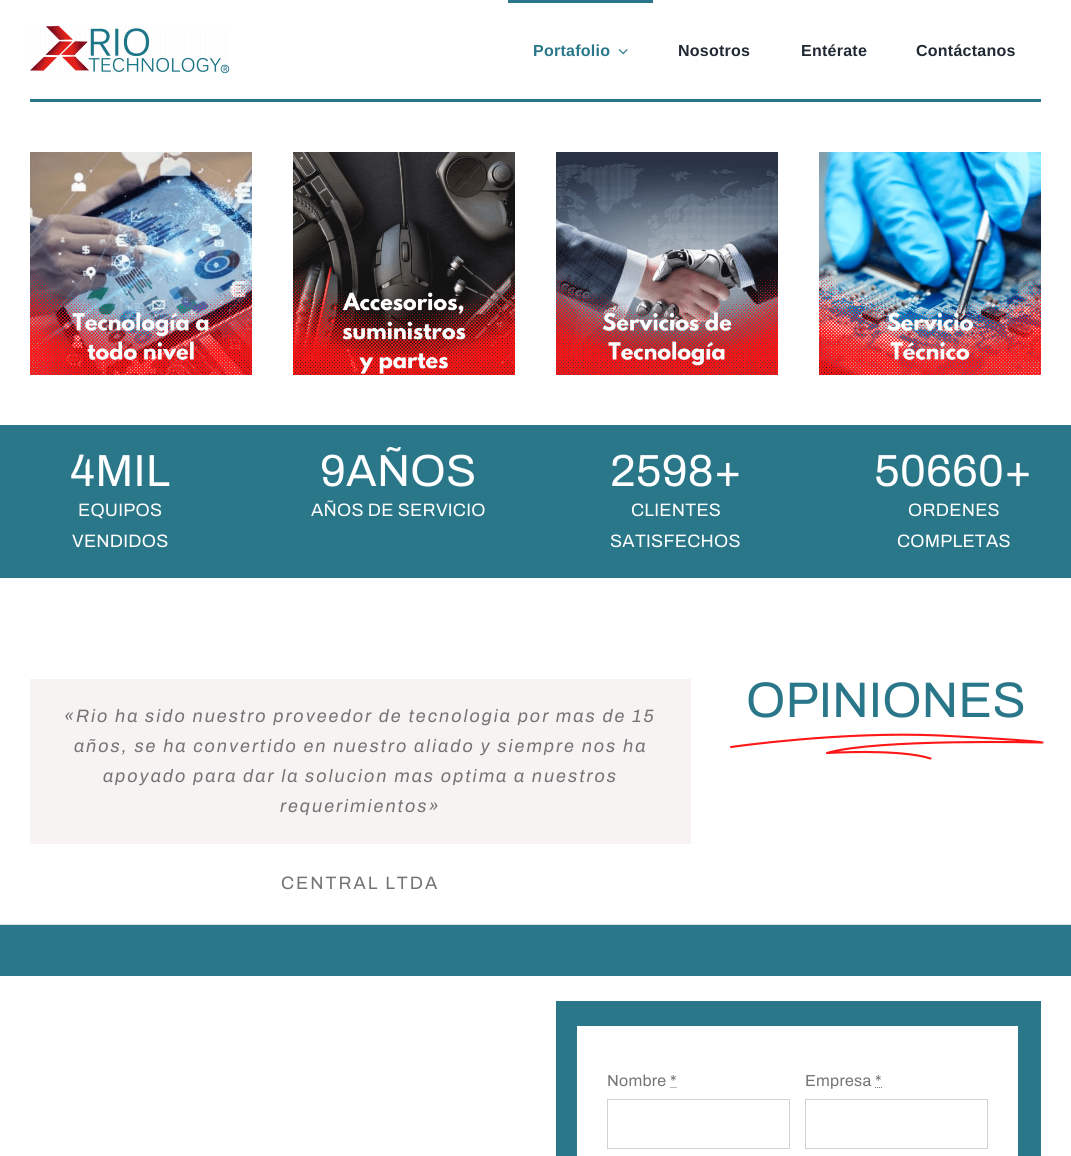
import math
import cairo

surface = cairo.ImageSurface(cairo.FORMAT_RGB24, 1071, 1156)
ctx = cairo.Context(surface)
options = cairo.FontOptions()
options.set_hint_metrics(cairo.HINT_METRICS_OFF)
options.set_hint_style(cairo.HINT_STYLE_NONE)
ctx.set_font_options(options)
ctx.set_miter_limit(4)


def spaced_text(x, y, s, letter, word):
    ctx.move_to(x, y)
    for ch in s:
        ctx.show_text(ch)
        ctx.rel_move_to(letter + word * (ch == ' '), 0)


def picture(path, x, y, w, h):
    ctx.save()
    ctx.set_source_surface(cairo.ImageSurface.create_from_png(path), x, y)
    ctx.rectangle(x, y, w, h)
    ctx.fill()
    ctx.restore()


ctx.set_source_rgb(1, 1, 1)
ctx.paint()
ctx.set_source_rgb(0.161, 0.467, 0.537)
ctx.rectangle(30, 99, 1011, 3)
ctx.fill()
picture("img1.png", 30, 26, 200, 48)
ctx.rectangle(508, 0, 145, 3)
ctx.fill()
ctx.select_font_face("Liberation Sans", cairo.FONT_SLANT_NORMAL, cairo.FONT_WEIGHT_BOLD)
ctx.set_font_size(16)
spaced_text(533, 56, "Portafolio", 0.25, 0)
picture("img2.png", 618, 49, 10, 6)
ctx.set_source_rgb(0.129, 0.161, 0.204)
spaced_text(678, 56, "Nosotros", 0.25, 0)
spaced_text(801, 56, "Entérate", 0.25, 0)
spaced_text(916, 56, "Contáctanos", 0.25, 0)
picture("img3.png", 30, 152, 222, 223)
picture("img4.png", 293, 152, 222, 223)
picture("img5.png", 556, 152, 222, 223)
picture("img6.png", 819, 152, 222, 223)
ctx.set_source_rgb(0.161, 0.467, 0.537)
ctx.rectangle(0, 425, 1071, 153)
ctx.fill()
ctx.select_font_face("Archivo SemiBold")
ctx.set_font_size(45)
ctx.set_source_rgb(1, 1, 1)
spaced_text(70, 486, "4MIL", 0.25, 0)
ctx.set_font_size(18)
spaced_text(78, 516, "EQUIPOS", 0.25, 0)
spaced_text(72, 547, "VENDIDOS", 0.25, 0)
ctx.set_font_size(45)
spaced_text(320, 486, "9AÑOS", 0.25, 0)
ctx.set_font_size(18)
spaced_text(311, 516, "AÑOS DE SERVICIO", 0.25, 0)
ctx.set_font_size(45)
spaced_text(610, 486, "2598+", 0.25, 0)
ctx.set_font_size(18)
spaced_text(631, 516, "CLIENTES", 0.25, 0)
spaced_text(610, 547, "SATISFECHOS", 0.25, 0)
ctx.set_font_size(45)
spaced_text(874, 486, "50660+", 0.25, 0)
ctx.set_font_size(18)
spaced_text(908, 516, "ORDENES", 0.25, 0)
spaced_text(897, 547, "COMPLETAS", 0.25, 0)
ctx.set_font_size(50)
ctx.set_source_rgb(0.161, 0.467, 0.537)
ctx.move_to(746, 717)
ctx.show_text("OPINIONES")
ctx.new_path()
ctx.move_to(731, 747)
ctx.curve_to(731, 747, 841.5, 731, 939.5, 735.5)
ctx.curve_to(1038, 740.5, 1042.5, 742.5, 1042.5, 742.5)
ctx.curve_to(1042.5, 742.5, 876, 738.5, 827, 753)
ctx.curve_to(827, 753, 899.5, 748.5, 930.5, 758.5)
ctx.set_source_rgb(1, 0.086, 0.086)
ctx.set_line_width(2.1)
ctx.set_line_cap(cairo.LINE_CAP_ROUND)
ctx.set_line_join(cairo.LINE_JOIN_ROUND)
ctx.stroke()
ctx.set_source_rgb(0.965, 0.953, 0.953)
ctx.rectangle(30, 679, 661, 165)
ctx.fill()
ctx.select_font_face("Archivo SemiBold", cairo.FONT_SLANT_ITALIC)
ctx.set_font_size(18)
ctx.set_source_rgb(0.455, 0.455, 0.455)
spaced_text(64, 722, "«Rio ha sido nuestro proveedor de tecnologia por mas de 15", 2, 0)
spaced_text(74, 752, "años, se ha convertido en nuestro aliado y siempre nos ha", 2, 0)
spaced_text(103, 782, "apoyado para dar la solucion mas optima a nuestros", 2, 0)
spaced_text(280, 812, "requerimientos»", 2, 0)
ctx.select_font_face("Archivo SemiBold")
spaced_text(281, 889, "CENTRAL LTDA", 2, 0)
ctx.set_source_rgb(0.878, 0.871, 0.871)
ctx.rectangle(0, 924, 1071, 1)
ctx.fill()
ctx.set_source_rgb(0.161, 0.467, 0.537)
ctx.rectangle(0, 925, 1071, 51)
ctx.fill()
ctx.rectangle(556, 1001, 485, 155)
ctx.fill()
ctx.set_source_rgb(1, 1, 1)
ctx.rectangle(577, 1026, 441, 130)
ctx.fill()
ctx.set_font_size(16)
ctx.set_source_rgb(0.455, 0.455, 0.455)
spaced_text(607, 1086, "Nombre *", 0.25, 0)
ctx.new_path()
ctx.move_to(670.5, 1087.5)
ctx.line_to(671.5, 1087.5)
ctx.move_to(672.5, 1087.5)
ctx.line_to(673.5, 1087.5)
ctx.move_to(674.5, 1087.5)
ctx.line_to(675.5, 1087.5)
ctx.move_to(676.5, 1087.5)
ctx.line_to(677, 1087.5)
ctx.set_line_width(1)
ctx.set_line_cap(cairo.LINE_CAP_BUTT)
ctx.set_line_join(cairo.LINE_JOIN_MITER)
ctx.stroke()
ctx.rectangle(607.5, 1099.5, 182, 49)
ctx.set_source_rgb(0.824, 0.824, 0.824)
ctx.stroke()
ctx.set_source_rgb(0.455, 0.455, 0.455)
spaced_text(805, 1086, "Empresa *", 0.25, 0)
ctx.new_path()
ctx.move_to(875, 1087.5)
ctx.line_to(876, 1087.5)
ctx.move_to(877, 1087.5)
ctx.line_to(878, 1087.5)
ctx.move_to(879, 1087.5)
ctx.line_to(880, 1087.5)
ctx.move_to(881, 1087.5)
ctx.line_to(882, 1087.5)
ctx.stroke()
ctx.rectangle(805.5, 1099.5, 182, 49)
ctx.set_source_rgb(0.824, 0.824, 0.824)
ctx.stroke()
surface.write_to_png("page.png")
